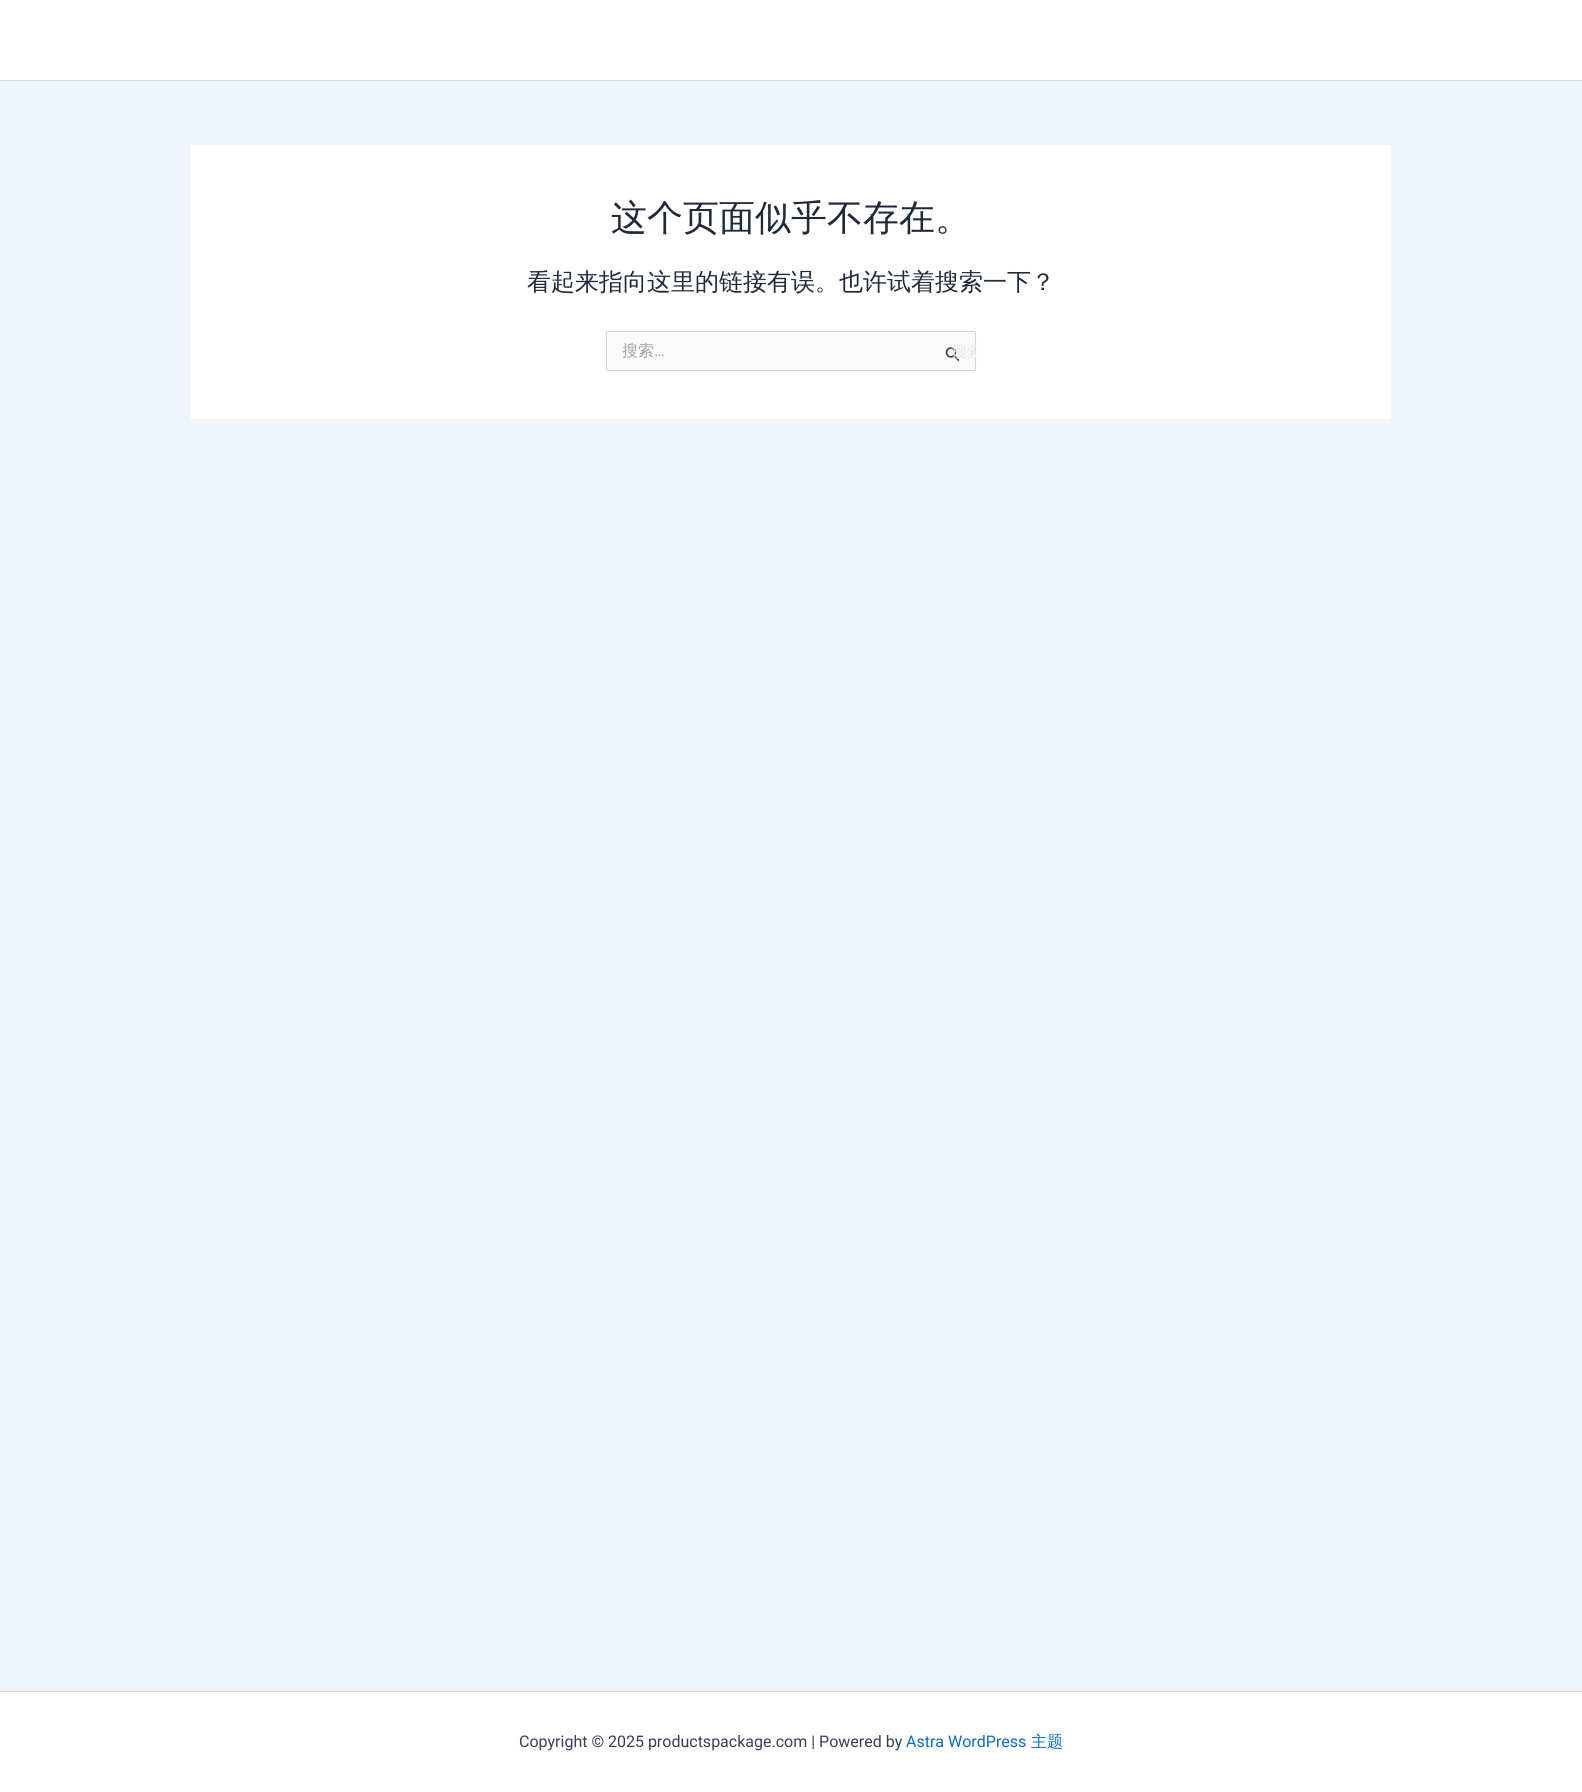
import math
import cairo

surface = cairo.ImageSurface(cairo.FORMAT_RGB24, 1582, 1792)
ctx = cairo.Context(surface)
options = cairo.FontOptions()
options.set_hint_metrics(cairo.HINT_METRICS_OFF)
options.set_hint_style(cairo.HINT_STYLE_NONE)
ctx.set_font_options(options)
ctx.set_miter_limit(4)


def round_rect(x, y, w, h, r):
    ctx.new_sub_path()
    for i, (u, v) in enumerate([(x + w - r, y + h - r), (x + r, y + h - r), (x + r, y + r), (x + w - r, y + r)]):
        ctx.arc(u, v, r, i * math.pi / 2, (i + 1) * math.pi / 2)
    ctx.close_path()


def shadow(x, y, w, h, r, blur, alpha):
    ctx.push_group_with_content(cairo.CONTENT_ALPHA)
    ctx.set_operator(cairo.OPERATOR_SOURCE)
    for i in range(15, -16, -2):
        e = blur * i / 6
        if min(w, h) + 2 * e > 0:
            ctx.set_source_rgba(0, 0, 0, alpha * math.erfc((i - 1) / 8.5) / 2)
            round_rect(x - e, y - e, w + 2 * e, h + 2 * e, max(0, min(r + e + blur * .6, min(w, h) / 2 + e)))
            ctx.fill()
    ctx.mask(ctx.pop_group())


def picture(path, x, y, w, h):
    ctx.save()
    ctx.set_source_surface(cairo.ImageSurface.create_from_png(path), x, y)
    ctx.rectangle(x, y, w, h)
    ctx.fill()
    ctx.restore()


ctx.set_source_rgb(0.941, 0.961, 0.98)
ctx.paint()
ctx.set_source_rgb(1, 1, 1)
ctx.rectangle(0, 0, 1582, 80)
ctx.fill()
ctx.set_source_rgb(0.82, 0.835, 0.859)
ctx.rectangle(0, 80, 1582, 1)
ctx.fill()
ctx.set_source_rgb(1, 1, 1)
ctx.rectangle(191, 145, 1200, 274)
ctx.fill()
ctx.select_font_face("WenQuanYi Zen Hei Medium")
ctx.set_font_size(36)
ctx.set_source_rgb(0.118, 0.161, 0.231)
ctx.move_to(611, 230)
ctx.show_text("这个页面似乎不存在。")
ctx.set_font_size(24)
ctx.move_to(527, 290)
ctx.show_text("看起来指向这里的链接有误。也许试着搜索一下？")
ctx.set_source_rgb(0, 0, 0)
shadow(606, 332, 370, 40, 2, 1, 0.05)
ctx.set_source_rgb(0.98, 0.98, 0.98)
round_rect(606.5, 331.5, 369, 39, 1.5)
ctx.fill_preserve()
ctx.set_source_rgb(0.82, 0.835, 0.859)
ctx.set_line_width(1)
ctx.stroke()
ctx.set_font_size(16)
ctx.set_source_rgb(0.612, 0.639, 0.686)
ctx.move_to(622, 356)
ctx.show_text("搜索")
ctx.select_font_face("Roboto")
ctx.move_to(654, 356)
ctx.show_text("…")
picture("img1.png", 945, 347, 14, 15)
ctx.save()
round_rect(931, 331, 45, 42, 2)
ctx.clip()
ctx.select_font_face("WenQuanYi Zen Hei Medium")
ctx.set_source_rgb(0.91, 0.91, 0.914)
ctx.move_to(951, 357)
ctx.show_text("搜索")
ctx.restore()
ctx.set_source_rgb(1, 1, 1)
ctx.rectangle(0, 1692, 1582, 100)
ctx.fill()
ctx.set_source_rgb(0.82, 0.835, 0.859)
ctx.rectangle(0, 1691, 1582, 1)
ctx.fill()
ctx.set_source_rgb(0.2, 0.255, 0.333)
ctx.move_to(519, 1747)
ctx.show_text("Copyright © 2025 productspackage.com | Powered by")
ctx.set_source_rgb(0.016, 0.42, 0.824)
ctx.move_to(906, 1747)
ctx.show_text("Astra WordPress")
ctx.select_font_face("WenQuanYi Zen Hei Medium")
ctx.move_to(1031, 1747)
ctx.show_text("主题")
surface.write_to_png("page.png")
